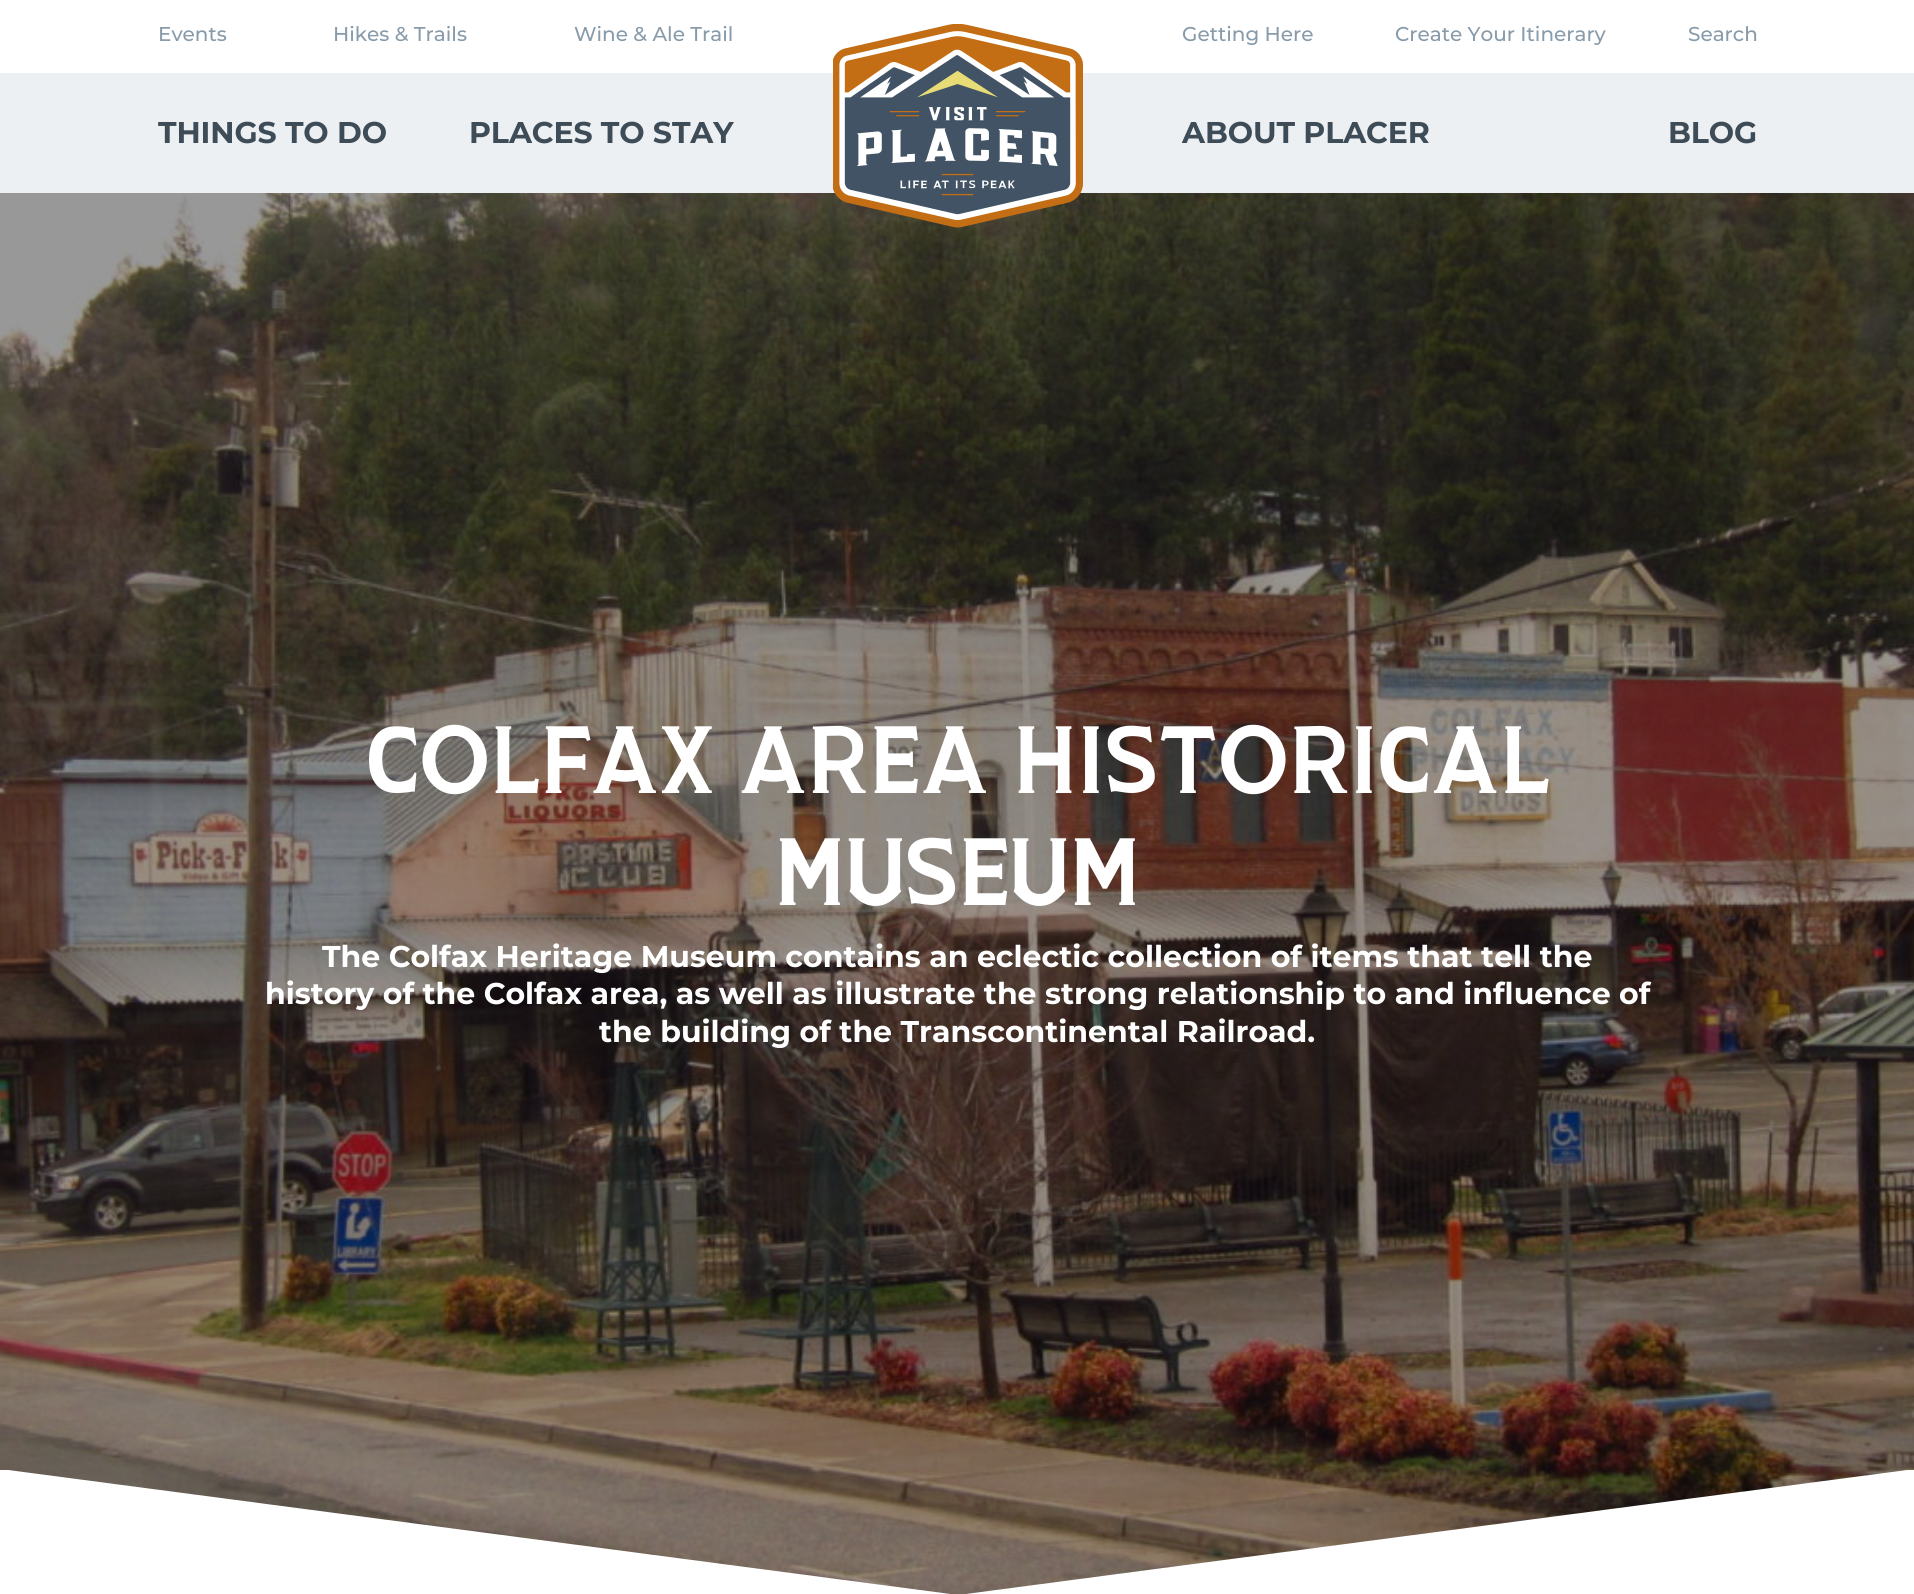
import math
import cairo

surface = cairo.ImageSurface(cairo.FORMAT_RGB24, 1914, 1594)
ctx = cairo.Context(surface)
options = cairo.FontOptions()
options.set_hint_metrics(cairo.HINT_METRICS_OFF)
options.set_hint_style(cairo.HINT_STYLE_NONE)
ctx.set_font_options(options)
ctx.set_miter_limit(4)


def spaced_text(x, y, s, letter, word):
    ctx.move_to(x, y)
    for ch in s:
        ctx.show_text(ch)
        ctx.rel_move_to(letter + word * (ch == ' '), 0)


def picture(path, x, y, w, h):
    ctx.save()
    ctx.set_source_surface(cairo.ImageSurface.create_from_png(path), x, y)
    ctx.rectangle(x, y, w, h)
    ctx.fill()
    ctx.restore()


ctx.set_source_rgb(1, 1, 1)
ctx.paint()
ctx.set_source_rgb(0.929, 0.941, 0.953)
ctx.rectangle(0, 73, 1914, 120)
ctx.fill()
picture("img2.png", 0, 193, 1914, 1401)
picture("img1.png", 833, 24, 250, 204)
ctx.select_font_face("Montserrat Medium")
ctx.set_font_size(20)
ctx.set_source_rgb(0.533, 0.608, 0.667)
ctx.move_to(158, 41)
ctx.show_text("Events")
ctx.move_to(333, 41)
ctx.show_text("Hikes & Trails")
ctx.move_to(574, 41)
ctx.show_text("Wine & Ale Trail")
ctx.move_to(1182, 41)
ctx.show_text("Getting Here")
ctx.move_to(1395, 41)
ctx.show_text("Create Your Itinerary")
ctx.move_to(1688, 41)
ctx.show_text("Search")
ctx.select_font_face("Montserrat", cairo.FONT_SLANT_NORMAL, cairo.FONT_WEIGHT_BOLD)
ctx.set_font_size(30)
ctx.set_source_rgb(0.243, 0.298, 0.341)
spaced_text(158, 143, "THINGS TO DO", -0.1, 0)
spaced_text(469, 143, "PLACES TO STAY", -0.1, 0)
spaced_text(1182, 143, "ABOUT PLACER", -0.1, 0)
spaced_text(1668, 143, "BLOG", -0.1, 0)
ctx.select_font_face("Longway")
ctx.set_font_size(120)
ctx.set_source_rgb(1, 1, 1)
ctx.move_to(366, 793)
ctx.show_text("COLFAX AREA HISTORICAL")
ctx.move_to(774, 905)
ctx.show_text("MUSEUM")
ctx.select_font_face("Montserrat", cairo.FONT_SLANT_NORMAL, cairo.FONT_WEIGHT_BOLD)
ctx.set_font_size(30)
ctx.move_to(322, 967)
ctx.show_text("The Colfax Heritage Museum contains an eclectic collection of items that tell the")
ctx.move_to(265, 1004)
ctx.show_text("history of the Colfax area, as well as illustrate the strong relationship to and influence of")
ctx.move_to(599, 1042)
ctx.show_text("the building of the Transcontinental Railroad.")
ctx.new_path()
ctx.move_to(-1, 1470)
ctx.line_to(8, 1470)
ctx.line_to(958, 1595)
ctx.line_to(1907, 1470)
ctx.line_to(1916, 1470)
ctx.line_to(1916, 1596)
ctx.line_to(-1, 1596)
ctx.close_path()
ctx.fill()
surface.write_to_png("page.png")
